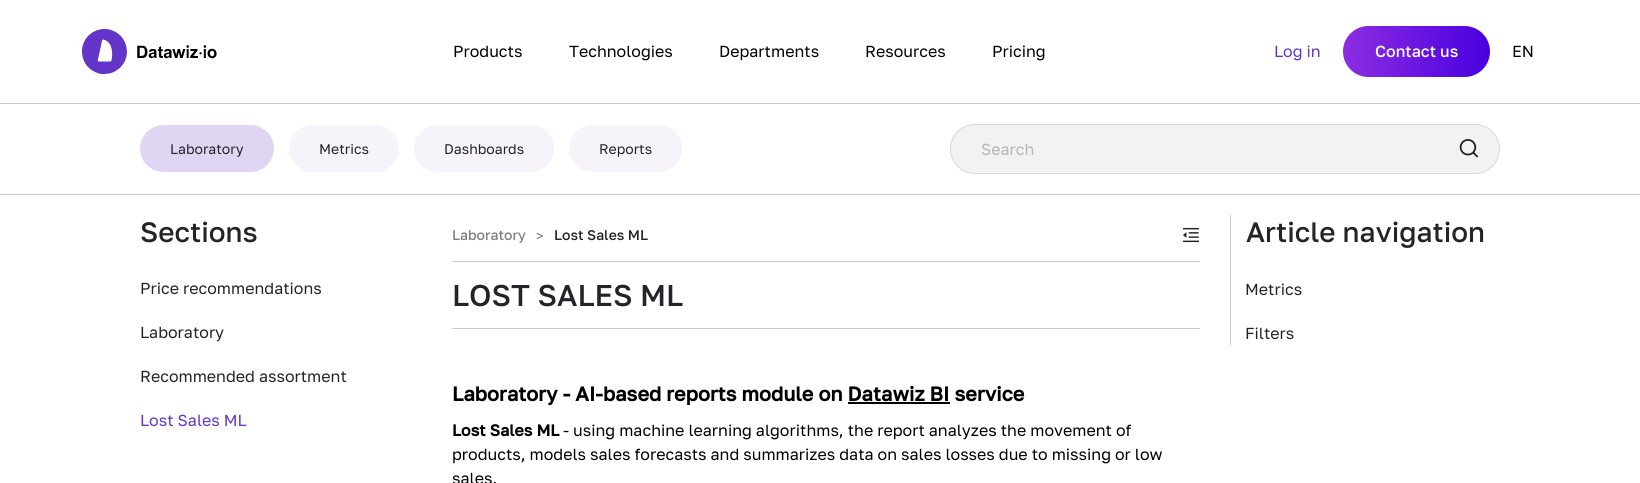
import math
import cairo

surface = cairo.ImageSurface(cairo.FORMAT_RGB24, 1640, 483)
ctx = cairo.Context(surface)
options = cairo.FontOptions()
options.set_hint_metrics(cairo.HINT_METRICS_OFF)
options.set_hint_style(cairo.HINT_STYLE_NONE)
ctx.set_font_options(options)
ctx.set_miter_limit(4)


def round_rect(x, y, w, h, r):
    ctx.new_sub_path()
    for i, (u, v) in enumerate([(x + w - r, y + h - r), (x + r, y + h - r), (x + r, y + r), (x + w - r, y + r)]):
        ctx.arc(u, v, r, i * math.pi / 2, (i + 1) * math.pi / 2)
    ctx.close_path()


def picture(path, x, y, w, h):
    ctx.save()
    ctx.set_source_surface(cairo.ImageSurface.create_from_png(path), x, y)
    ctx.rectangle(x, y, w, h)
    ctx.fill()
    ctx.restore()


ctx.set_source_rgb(1, 1, 1)
ctx.paint()
picture("img1.png", 82, 29, 135, 45)
ctx.select_font_face("Golos Text")
ctx.set_font_size(16)
ctx.set_source_rgb(0, 0, 0)
ctx.move_to(453, 57)
ctx.show_text("Products")
ctx.move_to(569, 57)
ctx.show_text("Technologies")
ctx.move_to(719, 57)
ctx.show_text("Departments")
ctx.move_to(865, 57)
ctx.show_text("Resources")
ctx.move_to(992, 57)
ctx.show_text("Pricing")
ctx.set_source_rgb(0.388, 0.204, 0.784)
ctx.move_to(1274, 57)
ctx.show_text("Log in")
gradient = cairo.LinearGradient(1343, 52, 1490, 51)
gradient.add_color_stop_rgba(0, 0.557, 0.176, 0.886, 1)
gradient.add_color_stop_rgba(1, 0.282, 0, 0.878, 1)
ctx.set_source(gradient)
round_rect(1343, 26, 147, 51, 25.5)
ctx.fill()
ctx.select_font_face("Golos Text Medium")
ctx.set_source_rgb(1, 1, 1)
ctx.move_to(1375, 57)
ctx.show_text("Contact us")
ctx.select_font_face("Golos Text")
ctx.set_source_rgb(0, 0, 0)
ctx.move_to(1512, 57)
ctx.show_text("EN")
ctx.set_source_rgb(0.8, 0.8, 0.8)
ctx.rectangle(0, 103, 1640, 1)
ctx.fill()
ctx.rectangle(0, 194, 1640, 1)
ctx.fill()
ctx.set_source_rgb(0.878, 0.839, 0.957)
round_rect(140, 125, 134, 47, 23.5)
ctx.fill()
ctx.set_font_size(14)
ctx.set_source_rgb(0.129, 0.145, 0.161)
ctx.move_to(170, 154)
ctx.show_text("Laboratory")
ctx.set_source_rgb(0.961, 0.953, 0.984)
round_rect(289, 125, 110, 47, 23.5)
ctx.fill()
ctx.set_source_rgb(0.129, 0.145, 0.161)
ctx.move_to(319, 154)
ctx.show_text("Metrics")
ctx.set_source_rgb(0.961, 0.953, 0.984)
round_rect(414, 125, 140, 47, 23.5)
ctx.fill()
ctx.set_source_rgb(0.129, 0.145, 0.161)
ctx.move_to(444, 154)
ctx.show_text("Dashboards")
ctx.set_source_rgb(0.961, 0.953, 0.984)
round_rect(569, 125, 113, 47, 23.5)
ctx.fill()
ctx.set_source_rgb(0.129, 0.145, 0.161)
ctx.move_to(599, 154)
ctx.show_text("Reports")
ctx.set_source_rgb(0.949, 0.949, 0.953)
round_rect(950.5, 124.5, 549, 49, 24.5)
ctx.fill_preserve()
ctx.set_source_rgb(0.851, 0.851, 0.851)
ctx.set_line_width(1)
ctx.stroke()
ctx.set_font_size(16)
ctx.set_source_rgb(0.714, 0.714, 0.714)
ctx.move_to(981, 155)
ctx.show_text("Search")
picture("img2.png", 1459, 139, 20, 19)
ctx.select_font_face("Golos Text Medium")
ctx.set_font_size(28)
ctx.set_source_rgb(0.129, 0.145, 0.161)
ctx.move_to(140, 242)
ctx.show_text("Sections")
ctx.select_font_face("Golos Text")
ctx.set_font_size(16)
ctx.move_to(140, 294)
ctx.show_text("Price recommendations")
ctx.move_to(140, 338)
ctx.show_text("Laboratory")
ctx.move_to(140, 382)
ctx.show_text("Recommended assortment")
ctx.set_source_rgb(0.388, 0.204, 0.784)
ctx.move_to(140, 426)
ctx.show_text("Lost Sales ML")
ctx.select_font_face("Golos Text Medium")
ctx.set_font_size(14)
ctx.set_source_rgb(0.502, 0.502, 0.502)
ctx.move_to(452, 240)
ctx.show_text("Laboratory")
ctx.select_font_face("Golos Text")
ctx.move_to(536, 241)
ctx.show_text(">")
ctx.select_font_face("Golos Text Medium")
ctx.set_source_rgb(0.129, 0.145, 0.161)
ctx.move_to(554, 240)
ctx.show_text("Lost Sales ML")
picture("img3.png", 1182, 227, 18, 16)
ctx.set_source_rgb(0.8, 0.8, 0.8)
ctx.rectangle(452, 261, 748, 1)
ctx.fill()
ctx.rectangle(452, 328, 748, 1)
ctx.fill()
ctx.set_font_size(30)
ctx.set_source_rgb(0.129, 0.145, 0.161)
ctx.move_to(452, 306)
ctx.show_text("LOST SALES ML")
ctx.select_font_face("Golos Text", cairo.FONT_SLANT_NORMAL, cairo.FONT_WEIGHT_BOLD)
ctx.set_font_size(20)
ctx.set_source_rgb(0, 0, 0)
ctx.move_to(452, 401)
ctx.show_text("Laboratory - AI-based reports module on Datawiz BI service")
ctx.rectangle(848, 402, 102, 2)
ctx.fill()
ctx.set_font_size(16)
ctx.move_to(452, 436)
ctx.show_text("Lost Sales ML")
ctx.select_font_face("Golos Text")
ctx.move_to(563, 436)
ctx.show_text("- using machine learning algorithms, the report analyzes the movement of")
ctx.move_to(452, 460)
ctx.show_text("products, models sales forecasts and summarizes data on sales losses due to missing or low")
ctx.move_to(452, 484)
ctx.show_text("sales.")
ctx.set_source_rgb(0.8, 0.8, 0.8)
ctx.rectangle(1230, 215, 1, 130)
ctx.fill()
ctx.select_font_face("Golos Text Medium")
ctx.set_font_size(28)
ctx.set_source_rgb(0.129, 0.145, 0.161)
ctx.move_to(1246, 242)
ctx.show_text("Аrticle navigation")
ctx.select_font_face("Golos Text")
ctx.set_font_size(16)
ctx.move_to(1245, 295)
ctx.show_text("Metrics")
ctx.move_to(1245, 339)
ctx.show_text("Filters")
surface.write_to_png("page.png")
